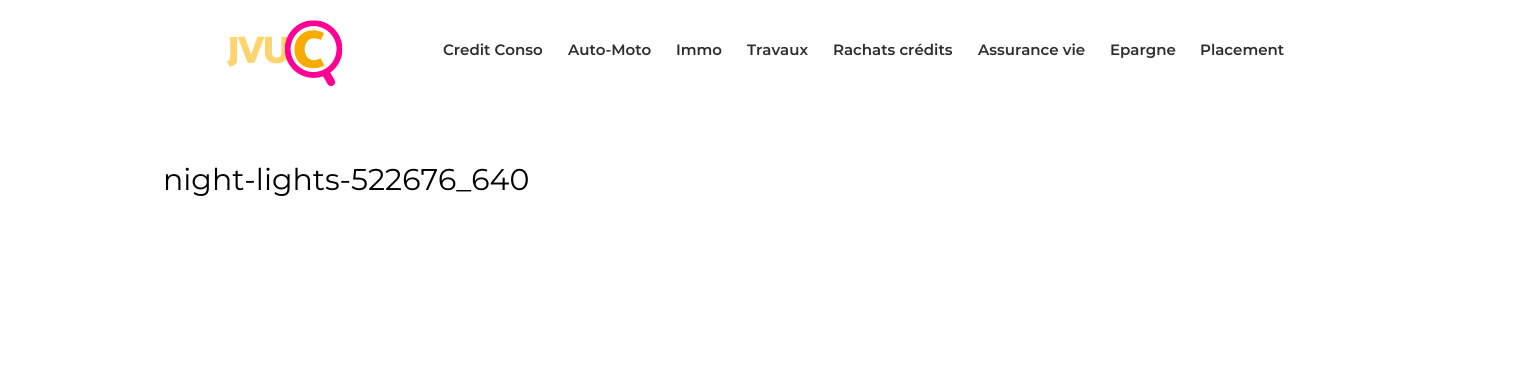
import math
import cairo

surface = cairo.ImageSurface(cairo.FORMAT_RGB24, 1526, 383)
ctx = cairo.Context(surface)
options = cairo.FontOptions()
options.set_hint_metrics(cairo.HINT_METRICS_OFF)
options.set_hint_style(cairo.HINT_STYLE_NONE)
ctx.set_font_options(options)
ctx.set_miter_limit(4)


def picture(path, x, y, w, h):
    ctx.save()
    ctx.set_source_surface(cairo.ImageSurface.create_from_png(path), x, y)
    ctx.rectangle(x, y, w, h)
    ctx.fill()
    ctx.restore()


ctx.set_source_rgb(1, 1, 1)
ctx.paint()
picture("img1.png", 227, 20, 116, 66)
ctx.select_font_face("Montserrat SemiBold")
ctx.set_font_size(15)
ctx.set_source_rgb(0.176, 0.176, 0.176)
ctx.move_to(443, 55)
ctx.show_text("Credit Conso")
ctx.move_to(568, 55)
ctx.show_text("Auto-Moto")
ctx.move_to(676, 55)
ctx.show_text("Immo")
ctx.move_to(747, 55)
ctx.show_text("Travaux")
ctx.move_to(833, 55)
ctx.show_text("Rachats crédits")
ctx.move_to(978, 55)
ctx.show_text("Assurance vie")
ctx.move_to(1110, 55)
ctx.show_text("Epargne")
ctx.move_to(1200, 55)
ctx.show_text("Placement")
ctx.select_font_face("Montserrat")
ctx.set_font_size(30)
ctx.set_source_rgb(0, 0, 0)
ctx.move_to(163, 190)
ctx.show_text("night-lights-522676_640")
surface.write_to_png("page.png")
